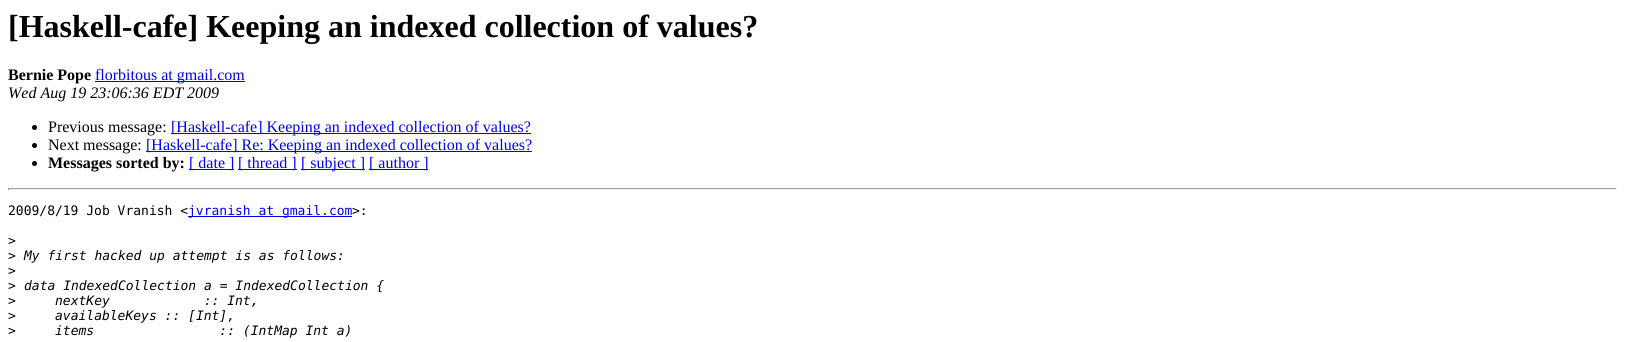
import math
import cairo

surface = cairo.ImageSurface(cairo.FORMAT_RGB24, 1625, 342)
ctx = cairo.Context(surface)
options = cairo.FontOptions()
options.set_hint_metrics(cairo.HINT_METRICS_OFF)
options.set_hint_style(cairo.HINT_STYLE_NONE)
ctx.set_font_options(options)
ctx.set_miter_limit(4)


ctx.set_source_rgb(1, 1, 1)
ctx.paint()
ctx.select_font_face("Liberation Serif", cairo.FONT_SLANT_NORMAL, cairo.FONT_WEIGHT_BOLD)
ctx.set_font_size(32)
ctx.set_source_rgb(0, 0, 0)
ctx.move_to(8, 37)
ctx.show_text("[Haskell-cafe] Keeping an indexed collection of values?")
ctx.set_font_size(16)
ctx.move_to(8, 80)
ctx.show_text("Bernie Pope")
ctx.set_source_rgb(0, 0, 0.933)
ctx.rectangle(95, 81, 150, 1)
ctx.fill()
ctx.select_font_face("Liberation Serif")
ctx.move_to(95, 80)
ctx.show_text("florbitous at gmail.com")
ctx.select_font_face("Liberation Serif", cairo.FONT_SLANT_ITALIC)
ctx.set_source_rgb(0, 0, 0)
ctx.move_to(8, 98)
ctx.show_text("Wed Aug 19 23:06:36 EDT 2009")
ctx.new_path()
ctx.arc(34.5, 127.5, 2.5, 0, 2 * math.pi)
ctx.fill()
ctx.select_font_face("Liberation Serif")
ctx.move_to(48, 132)
ctx.show_text("Previous message:")
ctx.set_source_rgb(0, 0, 0.933)
ctx.rectangle(171, 133, 360, 1)
ctx.fill()
ctx.move_to(171, 132)
ctx.show_text("[Haskell-cafe] Keeping an indexed collection of values?")
ctx.set_source_rgb(0, 0, 0)
ctx.new_path()
ctx.arc(34.5, 145.5, 2.5, 0, 2 * math.pi)
ctx.fill()
ctx.move_to(48, 150)
ctx.show_text("Next message:")
ctx.set_source_rgb(0, 0, 0.933)
ctx.rectangle(146, 151, 386, 1)
ctx.fill()
ctx.move_to(146, 150)
ctx.show_text("[Haskell-cafe] Re: Keeping an indexed collection of values?")
ctx.set_source_rgb(0, 0, 0)
ctx.new_path()
ctx.arc(34.5, 163.5, 2.5, 0, 2 * math.pi)
ctx.fill()
ctx.select_font_face("Liberation Serif", cairo.FONT_SLANT_NORMAL, cairo.FONT_WEIGHT_BOLD)
ctx.move_to(48, 168)
ctx.show_text("Messages sorted by:")
ctx.set_source_rgb(0, 0, 0.933)
ctx.rectangle(189, 169, 45, 1)
ctx.fill()
ctx.select_font_face("Liberation Serif")
ctx.move_to(189, 168)
ctx.show_text("[ date ]")
ctx.rectangle(238, 169, 59, 1)
ctx.fill()
ctx.move_to(238, 168)
ctx.show_text("[ thread ]")
ctx.rectangle(301, 169, 64, 1)
ctx.fill()
ctx.move_to(301, 168)
ctx.show_text("[ subject ]")
ctx.rectangle(369, 169, 59, 1)
ctx.fill()
ctx.move_to(369, 168)
ctx.show_text("[ author ]")
ctx.set_source_rgb(0.624, 0.624, 0.624)
ctx.rectangle(8, 188, 1609, 1)
ctx.fill()
ctx.set_source_rgb(0.933, 0.933, 0.933)
ctx.rectangle(1616, 188, 1, 2)
ctx.fill()
ctx.rectangle(8, 189, 1609, 1)
ctx.fill()
ctx.set_source_rgb(0.624, 0.624, 0.624)
ctx.rectangle(8, 188, 1, 2)
ctx.fill()
ctx.select_font_face("DejaVu Sans Mono")
ctx.set_font_size(13)
ctx.set_source_rgb(0, 0, 0)
ctx.move_to(8, 215)
ctx.show_text("2009/8/19 Job Vranish <")
ctx.set_source_rgb(0, 0, 0.933)
ctx.rectangle(188, 216, 164, 1)
ctx.fill()
ctx.move_to(188, 215)
ctx.show_text("jvranish at gmail.com")
ctx.set_source_rgb(0, 0, 0)
ctx.move_to(352, 215)
ctx.show_text(">:")
ctx.move_to(8, 245)
ctx.show_text(">")
ctx.move_to(8, 260)
ctx.show_text(">")
ctx.select_font_face("DejaVu Sans Mono", cairo.FONT_SLANT_ITALIC)
ctx.move_to(24, 260)
ctx.show_text("My first hacked up attempt is as follows:")
ctx.select_font_face("DejaVu Sans Mono")
ctx.move_to(8, 275)
ctx.show_text(">")
ctx.move_to(8, 290)
ctx.show_text(">")
ctx.select_font_face("DejaVu Sans Mono", cairo.FONT_SLANT_ITALIC)
ctx.move_to(24, 290)
ctx.show_text("data IndexedCollection a = IndexedCollection {")
ctx.select_font_face("DejaVu Sans Mono")
ctx.move_to(8, 305)
ctx.show_text(">")
ctx.select_font_face("DejaVu Sans Mono", cairo.FONT_SLANT_ITALIC)
ctx.move_to(55, 305)
ctx.show_text("nextKey            :: Int,")
ctx.select_font_face("DejaVu Sans Mono")
ctx.move_to(8, 320)
ctx.show_text(">")
ctx.select_font_face("DejaVu Sans Mono", cairo.FONT_SLANT_ITALIC)
ctx.move_to(55, 320)
ctx.show_text("availableKeys :: [Int],")
ctx.select_font_face("DejaVu Sans Mono")
ctx.move_to(8, 335)
ctx.show_text(">")
ctx.select_font_face("DejaVu Sans Mono", cairo.FONT_SLANT_ITALIC)
ctx.move_to(55, 335)
ctx.show_text("items                :: (IntMap Int a)")
surface.write_to_png("page.png")
